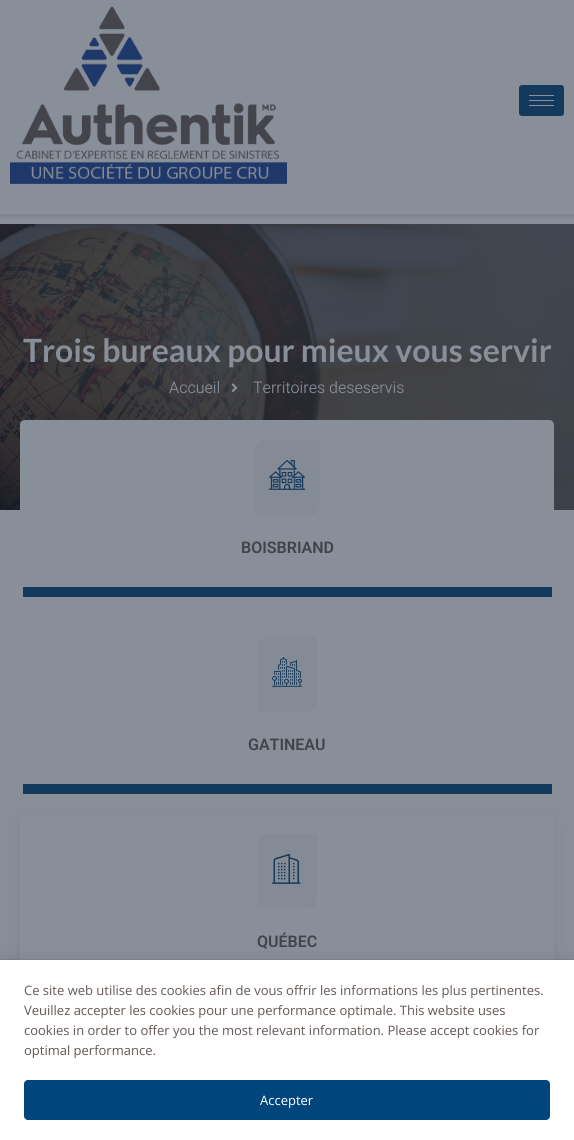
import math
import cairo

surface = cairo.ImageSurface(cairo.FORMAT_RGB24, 574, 1140)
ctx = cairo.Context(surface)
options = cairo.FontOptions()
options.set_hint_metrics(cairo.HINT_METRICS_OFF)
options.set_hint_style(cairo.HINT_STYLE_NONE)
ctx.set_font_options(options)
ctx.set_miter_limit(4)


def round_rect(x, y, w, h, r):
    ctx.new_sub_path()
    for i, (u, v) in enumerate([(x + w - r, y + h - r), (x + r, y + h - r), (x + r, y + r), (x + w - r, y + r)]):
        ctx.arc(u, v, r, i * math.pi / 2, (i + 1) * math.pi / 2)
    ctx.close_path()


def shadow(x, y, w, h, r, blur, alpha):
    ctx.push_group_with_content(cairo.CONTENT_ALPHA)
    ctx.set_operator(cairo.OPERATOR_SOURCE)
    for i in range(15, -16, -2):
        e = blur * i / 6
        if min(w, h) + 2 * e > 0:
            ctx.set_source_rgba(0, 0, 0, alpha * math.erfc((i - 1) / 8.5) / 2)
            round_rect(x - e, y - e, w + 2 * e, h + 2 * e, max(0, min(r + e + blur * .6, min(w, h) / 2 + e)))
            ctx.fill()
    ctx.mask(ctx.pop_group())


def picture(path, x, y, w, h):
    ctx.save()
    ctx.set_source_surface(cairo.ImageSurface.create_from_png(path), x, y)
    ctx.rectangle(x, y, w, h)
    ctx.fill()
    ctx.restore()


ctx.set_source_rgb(0.537, 0.561, 0.6)
ctx.paint()
ctx.save()
ctx.rectangle(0, 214, 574, 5)
ctx.clip()
ctx.set_source_rgb(0.075, 0.098, 0.141)
shadow(0, -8, 574, 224, 0, 2.5, 0.15)
ctx.restore()
picture("img1.png", 10, 7, 277, 177)
ctx.set_source_rgb(0.075, 0.224, 0.361)
round_rect(519, 85, 45, 31, 3)
ctx.fill()
ctx.set_source_rgb(0.537, 0.561, 0.6)
ctx.rectangle(529, 95, 25, 1)
ctx.fill()
ctx.rectangle(529, 100, 25, 1)
ctx.fill()
ctx.rectangle(529, 105, 25, 1)
ctx.fill()
picture("img2.png", 0, 224, 574, 286)
ctx.select_font_face("Lato", cairo.FONT_SLANT_NORMAL, cairo.FONT_WEIGHT_BOLD)
ctx.set_font_size(32)
ctx.move_to(23, 362)
ctx.show_text("Trois bureaux pour mieux vous servir")
ctx.select_font_face("Heebo Light")
ctx.set_font_size(16)
ctx.move_to(169, 393)
ctx.show_text("Accueil")
picture("img3.png", 231, 383, 7, 10)
ctx.move_to(253, 393)
ctx.show_text("Territoires deseservis")
ctx.new_path()
ctx.move_to(25, 420)
ctx.line_to(549, 420)
ctx.curve_to(552, 420, 554, 422, 554, 425)
ctx.line_to(554, 587)
ctx.line_to(20, 587)
ctx.line_to(20, 425)
ctx.curve_to(20, 422, 22, 420, 25, 420)
ctx.close_path()
ctx.fill()
ctx.set_source_rgb(0.075, 0.224, 0.361)
ctx.rectangle(23, 587, 529, 10)
ctx.fill()
ctx.set_source_rgb(0.522, 0.545, 0.584)
ctx.new_path()
ctx.move_to(264, 440)
ctx.line_to(320, 440)
ctx.line_to(320, 504)
ctx.curve_to(320, 510, 316, 515, 310, 515)
ctx.line_to(254, 515)
ctx.line_to(254, 451)
ctx.curve_to(254, 445, 258, 440, 264, 440)
ctx.close_path()
ctx.fill()
picture("img4.png", 269, 459, 36, 31)
ctx.select_font_face("Roboto SemiBold")
ctx.set_source_rgb(0.255, 0.259, 0.29)
ctx.move_to(241, 553)
ctx.show_text("BOISBRIAND")
ctx.set_source_rgb(0.075, 0.224, 0.361)
ctx.rectangle(23, 784, 529, 10)
ctx.fill()
ctx.set_source_rgb(0.522, 0.545, 0.584)
ctx.new_path()
ctx.move_to(266, 637)
ctx.line_to(317, 637)
ctx.line_to(317, 701)
ctx.curve_to(317, 707, 313, 712, 308, 712)
ctx.line_to(257, 712)
ctx.line_to(257, 648)
ctx.curve_to(257, 642, 261, 637, 266, 637)
ctx.close_path()
ctx.fill()
picture("img5.png", 272, 656, 30, 31)
ctx.set_source_rgb(0.255, 0.259, 0.29)
ctx.move_to(248, 750)
ctx.show_text("GATINEAU")
ctx.set_source_rgb(0.075, 0.098, 0.141)
shadow(20, 817, 534, 177, 5, 7.5, 0.1)
ctx.set_source_rgb(0.537, 0.561, 0.6)
ctx.new_path()
ctx.move_to(25, 814)
ctx.line_to(549, 814)
ctx.curve_to(552, 814, 554, 816, 554, 819)
ctx.line_to(554, 981)
ctx.line_to(20, 981)
ctx.line_to(20, 819)
ctx.curve_to(20, 816, 22, 814, 25, 814)
ctx.close_path()
ctx.fill()
ctx.set_source_rgb(0.522, 0.545, 0.584)
ctx.new_path()
ctx.move_to(266, 834)
ctx.line_to(317, 834)
ctx.line_to(317, 898)
ctx.curve_to(317, 904, 313, 909, 308, 909)
ctx.line_to(257, 909)
ctx.line_to(257, 845)
ctx.curve_to(257, 839, 261, 834, 266, 834)
ctx.close_path()
ctx.fill()
picture("img6.png", 272, 853, 29, 31)
ctx.set_source_rgb(0.255, 0.259, 0.29)
ctx.move_to(257, 947)
ctx.show_text("QUÉBEC")
ctx.set_source_rgb(0.141, 0.184, 0.259)
shadow(-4, 966, 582, 168, 0, 10, 0.31)
ctx.rectangle(-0.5, 959.5, 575, 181)
ctx.set_source_rgba(0.141, 0.184, 0.259, 0.08)
ctx.set_line_width(1)
ctx.stroke()
ctx.set_source_rgb(1, 1, 1)
ctx.rectangle(0, 960, 574, 180)
ctx.fill()
ctx.select_font_face("Open Sans")
ctx.set_font_size(13)
ctx.set_source_rgb(0.384, 0.345, 0.329)
ctx.move_to(24, 995)
ctx.show_text("Ce site web utilise des cookies afin de vous offrir les informations les plus pertinentes.")
ctx.move_to(24, 1015)
ctx.show_text("Veuillez accepter les cookies pour une performance optimale. This website uses")
ctx.move_to(24, 1035)
ctx.show_text("cookies in order to offer you the most relevant information. Please accept cookies for")
ctx.move_to(24, 1055)
ctx.show_text("optimal performance.")
ctx.set_source_rgb(0, 0.271, 0.482)
round_rect(24.5, 1080.5, 525, 39, 3.5)
ctx.fill_preserve()
ctx.stroke()
ctx.set_source_rgb(1, 1, 1)
ctx.move_to(260, 1105)
ctx.show_text("Accepter")
surface.write_to_png("page.png")
